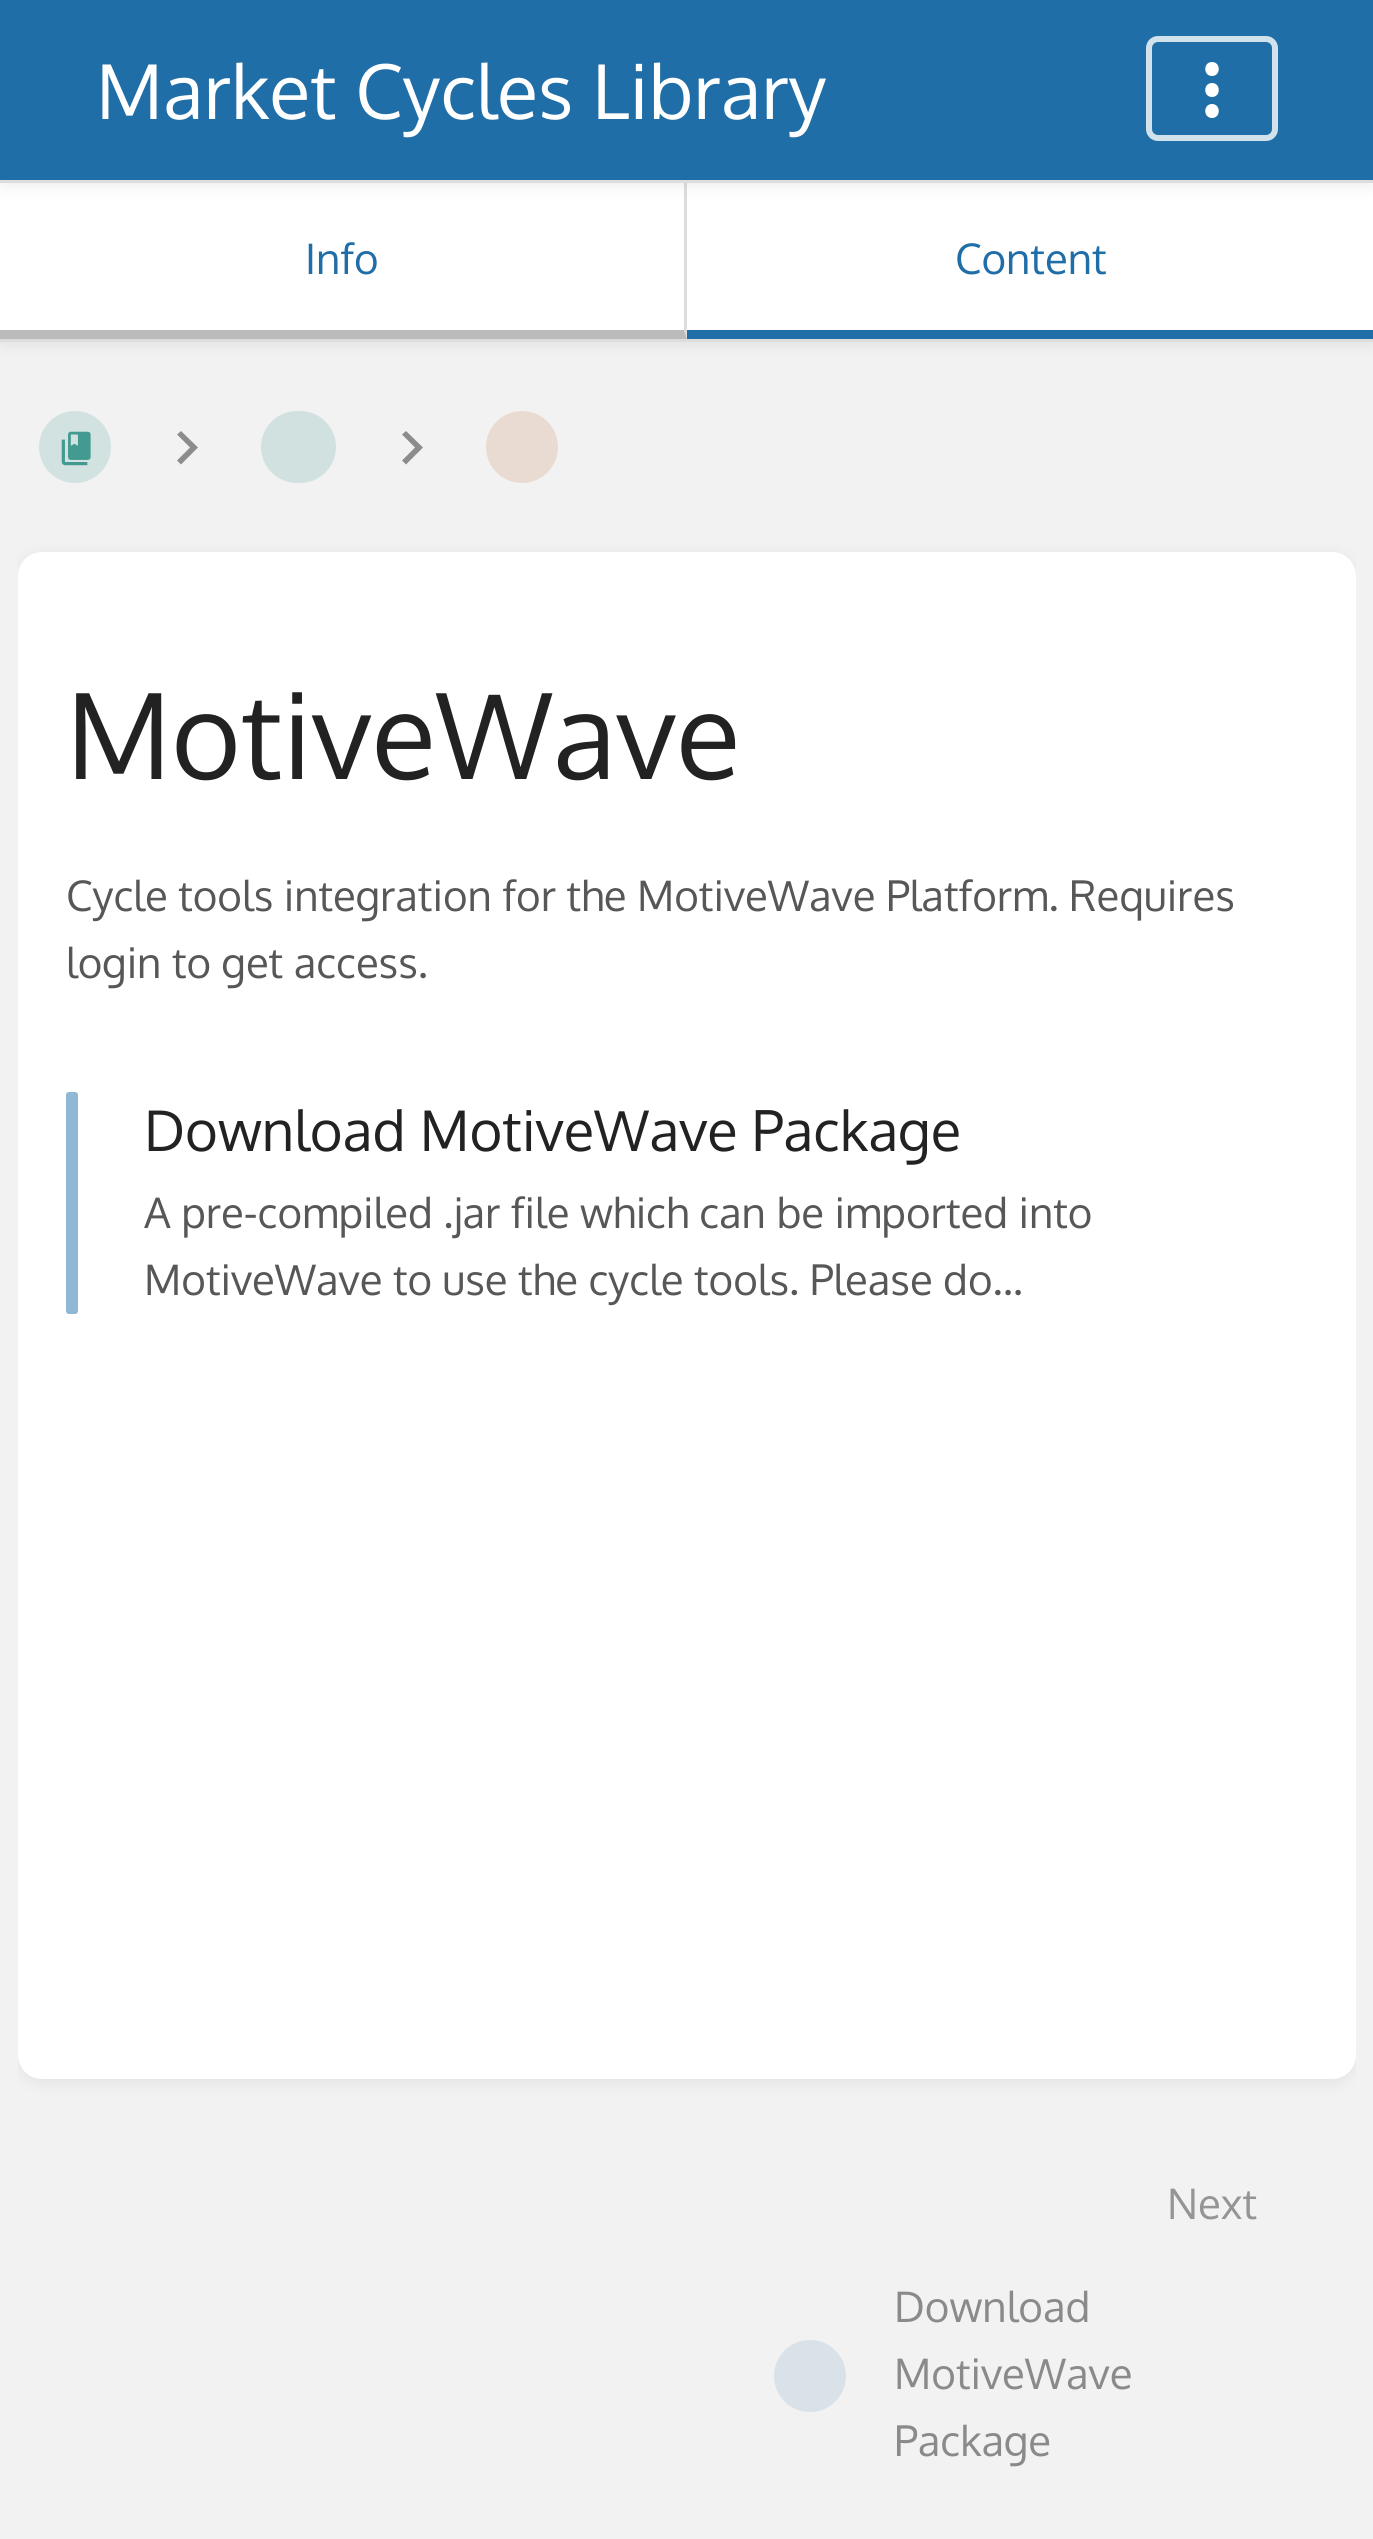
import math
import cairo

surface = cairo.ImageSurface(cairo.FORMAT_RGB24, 1373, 2539)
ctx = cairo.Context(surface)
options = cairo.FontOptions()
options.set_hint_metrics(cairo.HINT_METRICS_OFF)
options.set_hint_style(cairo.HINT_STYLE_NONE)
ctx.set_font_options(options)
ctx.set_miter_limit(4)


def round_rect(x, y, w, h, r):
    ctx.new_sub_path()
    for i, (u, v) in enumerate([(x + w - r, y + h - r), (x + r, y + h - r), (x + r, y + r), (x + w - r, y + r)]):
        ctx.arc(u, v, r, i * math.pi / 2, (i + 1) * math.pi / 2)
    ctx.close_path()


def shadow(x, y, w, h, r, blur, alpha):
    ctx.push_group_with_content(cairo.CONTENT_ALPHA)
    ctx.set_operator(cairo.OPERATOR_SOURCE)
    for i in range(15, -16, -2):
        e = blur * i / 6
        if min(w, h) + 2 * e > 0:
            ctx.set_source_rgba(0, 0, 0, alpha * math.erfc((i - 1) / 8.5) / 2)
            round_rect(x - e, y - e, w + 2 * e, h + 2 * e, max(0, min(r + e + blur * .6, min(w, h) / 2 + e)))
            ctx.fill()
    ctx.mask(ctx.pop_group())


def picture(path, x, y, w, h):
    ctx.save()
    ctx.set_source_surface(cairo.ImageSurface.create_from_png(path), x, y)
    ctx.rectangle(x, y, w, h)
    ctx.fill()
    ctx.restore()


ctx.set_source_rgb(0.949, 0.949, 0.949)
ctx.paint()
ctx.set_source_rgb(0, 0, 0)
shadow(3, 189, 1368, 153, 0, 9, 0.1)
ctx.set_source_rgb(1, 1, 1)
ctx.rectangle(0, 183, 1373, 156)
ctx.fill()
ctx.set_source_rgb(0.867, 0.867, 0.867)
ctx.new_path()
ctx.move_to(687, 183)
ctx.line_to(687, 339)
ctx.line_to(684, 330)
ctx.line_to(684, 183)
ctx.close_path()
ctx.fill()
ctx.set_source_rgb(0, 0, 0)
shadow(3, 6, 1368, 177, 0, 9, 0.1)
ctx.set_source_rgb(0.125, 0.431, 0.655)
ctx.rectangle(0, 0, 1373, 180)
ctx.fill()
ctx.set_source_rgb(0.867, 0.867, 0.867)
ctx.rectangle(0, 180, 1373, 3)
ctx.fill()
ctx.select_font_face("Oxygen")
ctx.set_font_size(75.5)
ctx.set_source_rgb(1, 1, 1)
ctx.move_to(96, 119)
ctx.show_text("Market Cycles Library")
round_rect(1149, 39, 126, 99, 9)
ctx.set_source_rgb(0.824, 0.886, 0.929)
ctx.set_line_width(6)
ctx.stroke()
ctx.set_source_rgb(1, 1, 1)
ctx.new_path()
ctx.move_to(1212, 76)
ctx.curve_to(1221, 76, 1221, 62, 1212, 62)
ctx.curve_to(1203, 62, 1203, 76, 1212, 76)
ctx.move_to(1212, 83)
ctx.curve_to(1203, 83, 1203, 97, 1212, 97)
ctx.curve_to(1221, 97, 1221, 83, 1212, 83)
ctx.move_to(1212, 104)
ctx.curve_to(1203, 104, 1203, 118, 1212, 118)
ctx.curve_to(1221, 118, 1221, 104, 1212, 104)
ctx.fill()
ctx.set_source_rgb(0.867, 0.867, 0.867)
ctx.rectangle(0, 339, 1373, 3)
ctx.fill()
ctx.set_source_rgb(0.733, 0.733, 0.733)
ctx.new_path()
ctx.move_to(687, 339)
ctx.line_to(0, 339)
ctx.line_to(0, 330)
ctx.line_to(684, 330)
ctx.close_path()
ctx.fill()
ctx.set_font_size(42)
ctx.set_source_rgb(0.125, 0.431, 0.655)
ctx.move_to(305, 274)
ctx.show_text("Info")
ctx.rectangle(687, 330, 686, 9)
ctx.fill()
ctx.move_to(955, 274)
ctx.show_text("Content")
picture("img1.png", 61, 431, 30, 35)
ctx.set_source_rgba(0.027, 0.482, 0.439, 0.14)
ctx.arc(75, 447, 36, 0, 2 * math.pi)
ctx.fill()
ctx.set_source_rgb(0.549, 0.549, 0.549)
ctx.new_path()
ctx.move_to(181, 431)
ctx.line_to(177, 434.5)
ctx.line_to(190, 447.5)
ctx.line_to(177, 460.5)
ctx.line_to(181, 464.5)
ctx.line_to(198, 447.5)
ctx.close_path()
ctx.fill()
ctx.set_source_rgb(0.82, 0.882, 0.878)
round_rect(261, 411, 75, 72, 36)
ctx.fill()
ctx.set_source_rgb(0.549, 0.549, 0.549)
ctx.new_path()
ctx.move_to(406, 431)
ctx.line_to(402, 434.5)
ctx.line_to(415, 447.5)
ctx.line_to(402, 460.5)
ctx.line_to(406, 464.5)
ctx.line_to(423, 447.5)
ctx.close_path()
ctx.fill()
ctx.set_source_rgb(0.914, 0.859, 0.824)
ctx.arc(522, 447, 36, 0, 2 * math.pi)
ctx.fill()
ctx.save()
ctx.rectangle(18, 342, 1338, 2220)
ctx.clip()
ctx.set_source_rgb(0, 0, 0)
shadow(21, 558, 1332, 1521, 21, 9, 0.1)
ctx.restore()
ctx.set_source_rgb(1, 1, 1)
round_rect(18, 552, 1338, 1527, 24)
ctx.fill()
ctx.set_font_size(118.75)
ctx.set_source_rgb(0.133, 0.133, 0.133)
ctx.move_to(66, 779)
ctx.show_text("MotiveWave")
ctx.set_font_size(42)
ctx.set_source_rgb(0.341, 0.341, 0.341)
ctx.move_to(66, 911)
ctx.show_text("Cycle tools integration for the MotiveWave Platform. Requires")
ctx.move_to(66, 978)
ctx.show_text("login to get access.")
ctx.set_source_rgb(0.565, 0.718, 0.827)
round_rect(66, 1092, 12, 222, 3)
ctx.fill()
ctx.set_font_size(56)
ctx.set_source_rgb(0.133, 0.133, 0.133)
ctx.move_to(144, 1151)
ctx.show_text("Download MotiveWave Package")
ctx.set_font_size(42)
ctx.set_source_rgb(0.341, 0.341, 0.341)
ctx.move_to(144, 1228)
ctx.show_text("A pre-compiled .jar file which can be imported into")
ctx.move_to(144, 1295)
ctx.show_text("MotiveWave to use the cycle tools. Please do...")
ctx.set_source_rgb(0.584, 0.584, 0.584)
ctx.move_to(1167, 2219)
ctx.show_text("Next")
ctx.set_source_rgb(0.851, 0.886, 0.914)
ctx.new_path()
ctx.arc(810, 2376, 36, 0, 2 * math.pi)
ctx.fill()
ctx.set_source_rgb(0.541, 0.541, 0.541)
ctx.move_to(894, 2322)
ctx.show_text("Download")
ctx.move_to(894, 2389)
ctx.show_text("MotiveWave")
ctx.move_to(894, 2456)
ctx.show_text("Package")
surface.write_to_png("page.png")
